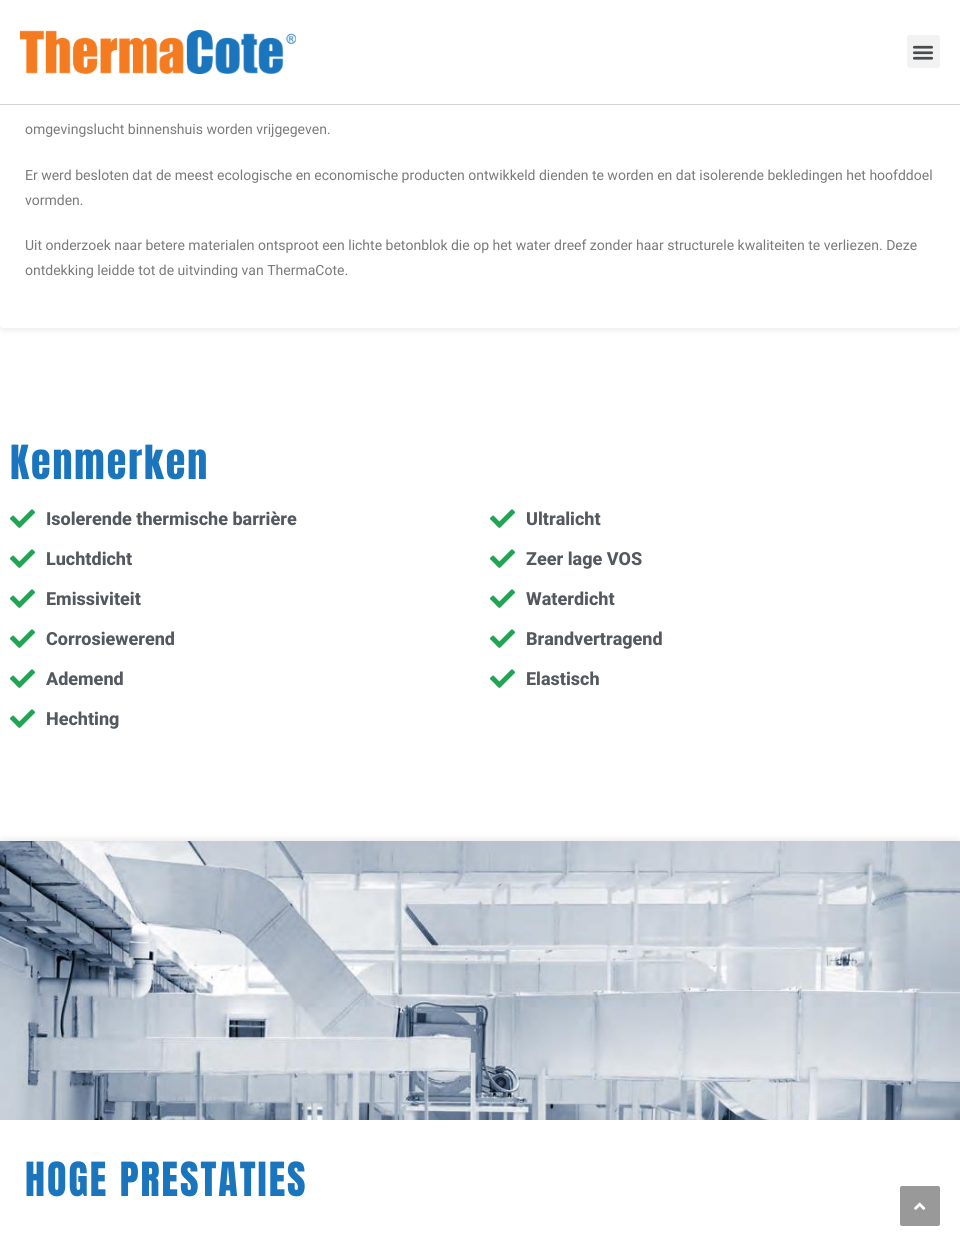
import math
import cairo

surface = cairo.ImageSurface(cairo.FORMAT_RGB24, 960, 1246)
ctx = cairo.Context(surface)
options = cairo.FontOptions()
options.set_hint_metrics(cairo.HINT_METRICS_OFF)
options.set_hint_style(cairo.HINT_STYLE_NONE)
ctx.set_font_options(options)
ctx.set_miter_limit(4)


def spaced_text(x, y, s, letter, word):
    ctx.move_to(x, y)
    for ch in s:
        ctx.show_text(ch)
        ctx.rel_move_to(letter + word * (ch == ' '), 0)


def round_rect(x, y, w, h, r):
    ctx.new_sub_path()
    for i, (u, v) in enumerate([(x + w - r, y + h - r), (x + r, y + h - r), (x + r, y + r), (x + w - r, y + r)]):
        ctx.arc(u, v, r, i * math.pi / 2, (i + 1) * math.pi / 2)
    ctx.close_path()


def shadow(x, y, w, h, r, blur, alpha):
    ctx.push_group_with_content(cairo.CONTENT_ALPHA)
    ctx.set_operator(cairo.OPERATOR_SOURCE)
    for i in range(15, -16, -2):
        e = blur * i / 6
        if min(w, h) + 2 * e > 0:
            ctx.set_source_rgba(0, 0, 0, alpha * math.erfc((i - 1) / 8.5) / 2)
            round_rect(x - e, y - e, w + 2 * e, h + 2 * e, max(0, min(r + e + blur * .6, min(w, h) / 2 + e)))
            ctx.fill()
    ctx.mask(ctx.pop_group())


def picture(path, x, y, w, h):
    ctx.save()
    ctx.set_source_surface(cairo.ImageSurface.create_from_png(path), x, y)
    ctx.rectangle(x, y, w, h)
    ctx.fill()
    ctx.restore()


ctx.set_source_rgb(1, 1, 1)
ctx.paint()
ctx.set_source_rgb(0, 0, 0)
shadow(0, -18, 960, 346, 3, 5, 0.12)
ctx.set_source_rgb(1, 1, 1)
round_rect(0, -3, 960, 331, 3)
ctx.fill()
ctx.set_source_rgb(0.827, 0.827, 0.827)
ctx.rectangle(0, 104, 960, 1)
ctx.fill()
picture("img1.png", 20, 30, 276, 44)
ctx.set_source_rgb(0.949, 0.949, 0.949)
round_rect(907, 35, 33, 33, 3)
ctx.fill()
picture("img2.png", 912, 45, 22, 15)
ctx.select_font_face("Roboto")
ctx.set_font_size(14)
ctx.set_source_rgb(0.478, 0.478, 0.478)
ctx.move_to(25, 134)
ctx.show_text("omgevingslucht binnenshuis worden vrijgegeven.")
ctx.move_to(25, 180)
ctx.show_text("Er werd besloten dat de meest ecologische en economische producten ontwikkeld dienden te worden en dat isolerende bekledingen het hoofddoel")
ctx.move_to(25, 205)
ctx.show_text("vormden.")
ctx.move_to(25, 250)
ctx.show_text("Uit onderzoek naar betere materialen ontsproot een lichte betonblok die op het water dreef zonder haar structurele kwaliteiten te verliezen. Deze")
ctx.move_to(25, 275)
ctx.show_text("ontdekking leidde tot de uitvinding van ThermaCote.")
ctx.select_font_face("Anton")
ctx.set_font_size(40)
ctx.set_source_rgb(0.102, 0.459, 0.737)
spaced_text(10, 479, "Kenmerken", 2, 0)
picture("img3.png", 10, 509, 25, 19)
ctx.select_font_face("Roboto ExtraBold")
ctx.set_font_size(18)
ctx.set_source_rgb(0.329, 0.349, 0.373)
ctx.move_to(46, 525)
ctx.show_text("Isolerende thermische barrière")
picture("img3.png", 10, 549, 25, 19)
ctx.move_to(46, 565)
ctx.show_text("Luchtdicht")
picture("img3.png", 10, 589, 25, 19)
ctx.move_to(46, 605)
ctx.show_text("Emissiviteit")
picture("img3.png", 10, 629, 25, 19)
ctx.move_to(46, 645)
ctx.show_text("Corrosiewerend")
picture("img3.png", 10, 669, 25, 19)
ctx.move_to(46, 685)
ctx.show_text("Ademend")
picture("img3.png", 10, 709, 25, 19)
ctx.move_to(46, 725)
ctx.show_text("Hechting")
picture("img3.png", 490, 509, 25, 19)
ctx.move_to(526, 525)
ctx.show_text("Ultralicht")
picture("img3.png", 490, 549, 25, 19)
ctx.move_to(526, 565)
ctx.show_text("Zeer lage VOS")
picture("img3.png", 490, 589, 25, 19)
ctx.move_to(526, 605)
ctx.show_text("Waterdicht")
picture("img3.png", 490, 629, 25, 19)
ctx.move_to(526, 645)
ctx.show_text("Brandvertragend")
picture("img3.png", 490, 669, 25, 19)
ctx.move_to(526, 685)
ctx.show_text("Elastisch")
ctx.set_source_rgb(0, 0, 0)
shadow(0, 841, 960, 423, 3, 5, 0.12)
ctx.set_source_rgb(1, 1, 1)
ctx.rectangle(0, 1120, 960, 126)
ctx.fill()
picture("img4.png", 0, 841, 960, 279)
ctx.select_font_face("Anton")
ctx.set_font_size(40)
ctx.set_source_rgb(0.102, 0.459, 0.737)
spaced_text(25, 1196, "HOGE PRESTATIES", 2, 0)
ctx.set_source_rgb(0.6, 0.6, 0.6)
round_rect(900, 1186, 40, 40, 2)
ctx.fill()
picture("img5.png", 914, 1202, 12, 8)
surface.write_to_png("page.png")
